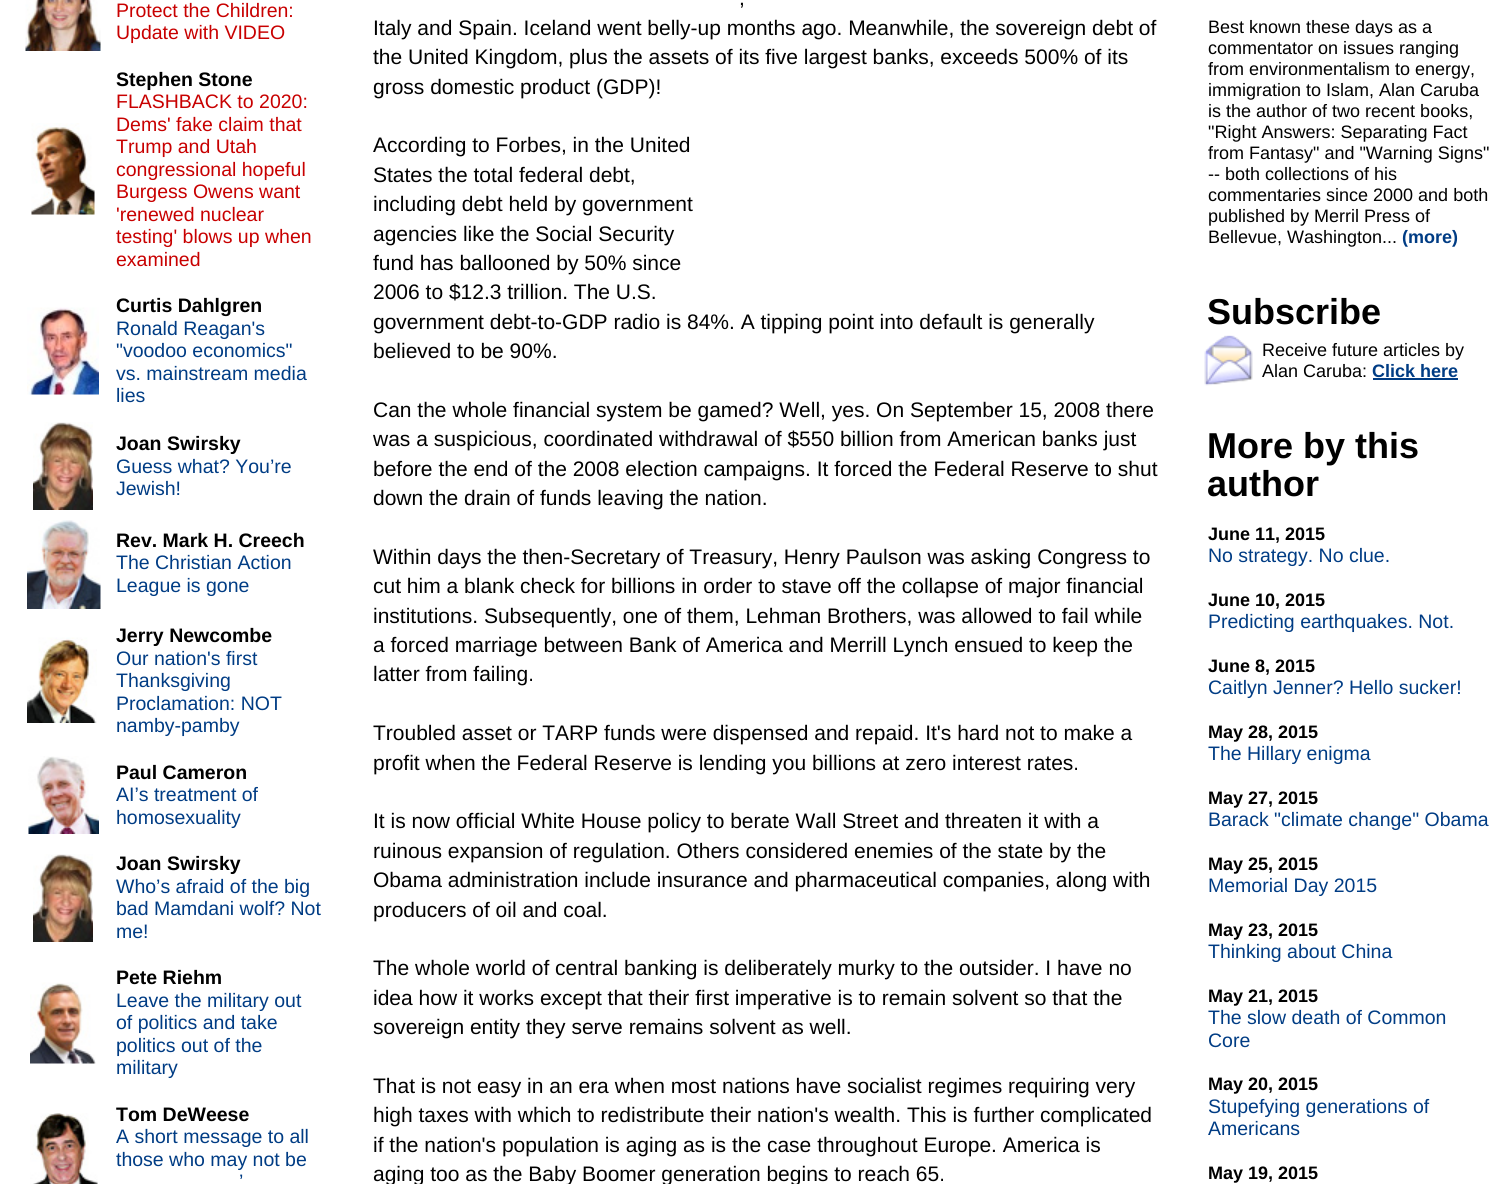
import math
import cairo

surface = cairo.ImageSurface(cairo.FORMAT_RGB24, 1509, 1184)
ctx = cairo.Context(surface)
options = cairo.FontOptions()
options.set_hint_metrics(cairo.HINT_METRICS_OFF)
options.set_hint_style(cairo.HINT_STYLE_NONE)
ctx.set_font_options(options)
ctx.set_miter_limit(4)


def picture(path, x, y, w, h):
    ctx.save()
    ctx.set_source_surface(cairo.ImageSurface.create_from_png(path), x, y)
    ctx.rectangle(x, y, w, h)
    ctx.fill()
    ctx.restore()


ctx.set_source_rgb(1, 1, 1)
ctx.paint()
picture("img1.png", 25, 0, 76, 51)
ctx.select_font_face("Liberation Sans")
ctx.set_font_size(19.5)
ctx.set_source_rgb(0.784, 0, 0)
ctx.move_to(116, 17)
ctx.show_text("Protect the Children:")
ctx.move_to(116, 39)
ctx.show_text("Update with VIDEO")
picture("img2.png", 31, 123, 64, 92)
ctx.select_font_face("Liberation Sans", cairo.FONT_SLANT_NORMAL, cairo.FONT_WEIGHT_BOLD)
ctx.set_source_rgb(0, 0, 0)
ctx.move_to(116, 86)
ctx.show_text("Stephen Stone")
ctx.select_font_face("Liberation Sans")
ctx.set_source_rgb(0.784, 0, 0)
ctx.move_to(116, 108)
ctx.show_text("FLASHBACK to 2020:")
ctx.move_to(116, 131)
ctx.show_text("Dems' fake claim that")
ctx.move_to(116, 153)
ctx.show_text("Trump and Utah")
ctx.move_to(116, 176)
ctx.show_text("congressional hopeful")
ctx.move_to(116, 198)
ctx.show_text("Burgess Owens want")
ctx.move_to(116, 221)
ctx.show_text("'renewed nuclear")
ctx.move_to(116, 243)
ctx.show_text("testing' blows up when")
ctx.move_to(116, 266)
ctx.show_text("examined")
picture("img3.png", 27, 307, 72, 88)
ctx.select_font_face("Liberation Sans", cairo.FONT_SLANT_NORMAL, cairo.FONT_WEIGHT_BOLD)
ctx.set_source_rgb(0, 0, 0)
ctx.move_to(116, 312)
ctx.show_text("Curtis Dahlgren")
ctx.select_font_face("Liberation Sans")
ctx.set_source_rgb(0, 0.235, 0.518)
ctx.move_to(116, 335)
ctx.show_text("Ronald Reagan's")
ctx.move_to(116, 357)
ctx.show_text("\"voodoo economics\"")
ctx.move_to(116, 380)
ctx.show_text("vs. mainstream media")
ctx.move_to(116, 402)
ctx.show_text("lies")
picture("img4.png", 33, 422, 60, 88)
ctx.select_font_face("Liberation Sans", cairo.FONT_SLANT_NORMAL, cairo.FONT_WEIGHT_BOLD)
ctx.set_source_rgb(0, 0, 0)
ctx.move_to(116, 450)
ctx.show_text("Joan Swirsky")
ctx.select_font_face("Liberation Sans")
ctx.set_source_rgb(0, 0.235, 0.518)
ctx.move_to(116, 473)
ctx.show_text("Guess what? You’re")
ctx.move_to(116, 495)
ctx.show_text("Jewish!")
picture("img5.png", 27, 520, 74, 89)
ctx.select_font_face("Liberation Sans", cairo.FONT_SLANT_NORMAL, cairo.FONT_WEIGHT_BOLD)
ctx.set_source_rgb(0, 0, 0)
ctx.move_to(116, 547)
ctx.show_text("Rev. Mark H. Creech")
ctx.select_font_face("Liberation Sans")
ctx.set_source_rgb(0, 0.235, 0.518)
ctx.move_to(116, 569)
ctx.show_text("The Christian Action")
ctx.move_to(116, 592)
ctx.show_text("League is gone")
picture("img6.png", 27, 637, 70, 86)
ctx.select_font_face("Liberation Sans", cairo.FONT_SLANT_NORMAL, cairo.FONT_WEIGHT_BOLD)
ctx.set_source_rgb(0, 0, 0)
ctx.move_to(116, 642)
ctx.show_text("Jerry Newcombe")
ctx.select_font_face("Liberation Sans")
ctx.set_source_rgb(0, 0.235, 0.518)
ctx.move_to(116, 665)
ctx.show_text("Our nation's first")
ctx.move_to(116, 687)
ctx.show_text("Thanksgiving")
ctx.move_to(116, 710)
ctx.show_text("Proclamation: NOT")
ctx.move_to(116, 732)
ctx.show_text("namby-pamby")
picture("img7.png", 28, 756, 71, 78)
ctx.select_font_face("Liberation Sans", cairo.FONT_SLANT_NORMAL, cairo.FONT_WEIGHT_BOLD)
ctx.set_source_rgb(0, 0, 0)
ctx.move_to(116, 779)
ctx.show_text("Paul Cameron")
ctx.select_font_face("Liberation Sans")
ctx.set_source_rgb(0, 0.235, 0.518)
ctx.move_to(116, 801)
ctx.show_text("AI’s treatment of")
ctx.move_to(116, 824)
ctx.show_text("homosexuality")
picture("img4.png", 33, 854, 60, 88)
ctx.select_font_face("Liberation Sans", cairo.FONT_SLANT_NORMAL, cairo.FONT_WEIGHT_BOLD)
ctx.set_source_rgb(0, 0, 0)
ctx.move_to(116, 870)
ctx.show_text("Joan Swirsky")
ctx.select_font_face("Liberation Sans")
ctx.set_source_rgb(0, 0.235, 0.518)
ctx.move_to(116, 893)
ctx.show_text("Who’s afraid of the big")
ctx.move_to(116, 915)
ctx.show_text("bad Mamdani wolf? Not")
ctx.move_to(116, 938)
ctx.show_text("me!")
picture("img8.png", 30, 982, 66, 82)
ctx.select_font_face("Liberation Sans", cairo.FONT_SLANT_NORMAL, cairo.FONT_WEIGHT_BOLD)
ctx.set_source_rgb(0, 0, 0)
ctx.move_to(116, 984)
ctx.show_text("Pete Riehm")
ctx.select_font_face("Liberation Sans")
ctx.set_source_rgb(0, 0.235, 0.518)
ctx.move_to(116, 1007)
ctx.show_text("Leave the military out")
ctx.move_to(116, 1029)
ctx.show_text("of politics and take")
ctx.move_to(116, 1052)
ctx.show_text("politics out of the")
ctx.move_to(116, 1074)
ctx.show_text("military")
picture("img9.png", 30, 1113, 68, 71)
ctx.select_font_face("Liberation Sans", cairo.FONT_SLANT_NORMAL, cairo.FONT_WEIGHT_BOLD)
ctx.set_source_rgb(0, 0, 0)
ctx.move_to(116, 1121)
ctx.show_text("Tom DeWeese")
ctx.select_font_face("Liberation Sans")
ctx.set_source_rgb(0, 0.235, 0.518)
ctx.move_to(116, 1143)
ctx.show_text("A short message to all")
ctx.move_to(116, 1166)
ctx.show_text("those who may not be")
ctx.move_to(239, 1188)
ctx.show_text("’")
ctx.set_font_size(21)
ctx.set_source_rgb(0, 0, 0)
ctx.move_to(739, 5)
ctx.show_text(",")
ctx.move_to(373, 35)
ctx.show_text("Italy and Spain. Iceland went belly-up months ago. Meanwhile, the sovereign debt of")
ctx.move_to(373, 64)
ctx.show_text("the United Kingdom, plus the assets of its five largest banks, exceeds 500% of its")
ctx.move_to(373, 94)
ctx.show_text("gross domestic product (GDP)!")
ctx.move_to(373, 152)
ctx.show_text("According to Forbes, in the United")
ctx.move_to(373, 182)
ctx.show_text("States the total federal debt,")
ctx.move_to(373, 211)
ctx.show_text("including debt held by government")
ctx.move_to(373, 241)
ctx.show_text("agencies like the Social Security")
ctx.move_to(373, 270)
ctx.show_text("fund has ballooned by 50% since")
ctx.move_to(373, 299)
ctx.show_text("2006 to $12.3 trillion. The U.S.")
ctx.move_to(373, 329)
ctx.show_text("government debt-to-GDP radio is 84%. A tipping point into default is generally")
ctx.move_to(373, 358)
ctx.show_text("believed to be 90%.")
ctx.move_to(373, 417)
ctx.show_text("Can the whole financial system be gamed? Well, yes. On September 15, 2008 there")
ctx.move_to(373, 446)
ctx.show_text("was a suspicious, coordinated withdrawal of $550 billion from American banks just")
ctx.move_to(373, 476)
ctx.show_text("before the end of the 2008 election campaigns. It forced the Federal Reserve to shut")
ctx.move_to(373, 505)
ctx.show_text("down the drain of funds leaving the nation.")
ctx.move_to(373, 564)
ctx.show_text("Within days the then-Secretary of Treasury, Henry Paulson was asking Congress to")
ctx.move_to(373, 593)
ctx.show_text("cut him a blank check for billions in order to stave off the collapse of major financial")
ctx.move_to(373, 623)
ctx.show_text("institutions. Subsequently, one of them, Lehman Brothers, was allowed to fail while")
ctx.move_to(373, 652)
ctx.show_text("a forced marriage between Bank of America and Merrill Lynch ensued to keep the")
ctx.move_to(373, 681)
ctx.show_text("latter from failing.")
ctx.move_to(373, 740)
ctx.show_text("Troubled asset or TARP funds were dispensed and repaid. It's hard not to make a")
ctx.move_to(373, 770)
ctx.show_text("profit when the Federal Reserve is lending you billions at zero interest rates.")
ctx.move_to(373, 828)
ctx.show_text("It is now official White House policy to berate Wall Street and threaten it with a")
ctx.move_to(373, 858)
ctx.show_text("ruinous expansion of regulation. Others considered enemies of the state by the")
ctx.move_to(373, 887)
ctx.show_text("Obama administration include insurance and pharmaceutical companies, along with")
ctx.move_to(373, 917)
ctx.show_text("producers of oil and coal.")
ctx.move_to(373, 975)
ctx.show_text("The whole world of central banking is deliberately murky to the outsider. I have no")
ctx.move_to(373, 1005)
ctx.show_text("idea how it works except that their first imperative is to remain solvent so that the")
ctx.move_to(373, 1034)
ctx.show_text("sovereign entity they serve remains solvent as well.")
ctx.move_to(373, 1093)
ctx.show_text("That is not easy in an era when most nations have socialist regimes requiring very")
ctx.move_to(373, 1122)
ctx.show_text("high taxes with which to redistribute their nation's wealth. This is further complicated")
ctx.move_to(373, 1152)
ctx.show_text("if the nation's population is aging as is the case throughout Europe. America is")
ctx.move_to(373, 1181)
ctx.show_text("aging too as the Baby Boomer generation begins to reach 65.")
ctx.set_font_size(18)
ctx.move_to(1208, 33)
ctx.show_text("Best known these days as a")
ctx.move_to(1208, 54)
ctx.show_text("commentator on issues ranging")
ctx.move_to(1208, 75)
ctx.show_text("from environmentalism to energy,")
ctx.move_to(1208, 96)
ctx.show_text("immigration to Islam, Alan Caruba")
ctx.move_to(1208, 117)
ctx.show_text("is the author of two recent books,")
ctx.move_to(1208, 138)
ctx.show_text("\"Right Answers: Separating Fact")
ctx.move_to(1208, 159)
ctx.show_text("from Fantasy\" and \"Warning Signs\"")
ctx.move_to(1208, 180)
ctx.show_text("-- both collections of his")
ctx.move_to(1208, 201)
ctx.show_text("commentaries since 2000 and both")
ctx.move_to(1208, 222)
ctx.show_text("published by Merril Press of")
ctx.move_to(1208, 243)
ctx.show_text("Bellevue, Washington...")
ctx.select_font_face("Liberation Sans", cairo.FONT_SLANT_NORMAL, cairo.FONT_WEIGHT_BOLD)
ctx.set_source_rgb(0, 0.235, 0.518)
ctx.move_to(1402, 243)
ctx.show_text("(more)")
ctx.set_font_size(36)
ctx.set_source_rgb(0, 0, 0)
ctx.move_to(1207, 324)
ctx.show_text("Subscribe")
picture("img10.png", 1204, 335, 49, 51)
ctx.select_font_face("Liberation Sans")
ctx.set_font_size(18)
ctx.move_to(1262, 356)
ctx.show_text("Receive future articles by")
ctx.move_to(1262, 377)
ctx.show_text("Alan Caruba:")
ctx.select_font_face("Liberation Sans", cairo.FONT_SLANT_NORMAL, cairo.FONT_WEIGHT_BOLD)
ctx.set_source_rgb(0, 0.235, 0.518)
ctx.move_to(1372, 377)
ctx.show_text("Click here")
ctx.rectangle(1373, 378, 85, 2)
ctx.fill()
ctx.set_font_size(36)
ctx.set_source_rgb(0, 0, 0)
ctx.move_to(1207, 458)
ctx.show_text("More by this")
ctx.move_to(1207, 496)
ctx.show_text("author")
ctx.set_font_size(18)
ctx.move_to(1208, 540)
ctx.show_text("June 11, 2015")
ctx.select_font_face("Liberation Sans")
ctx.set_font_size(19.5)
ctx.set_source_rgb(0, 0.235, 0.518)
ctx.move_to(1208, 562)
ctx.show_text("No strategy. No clue.")
ctx.select_font_face("Liberation Sans", cairo.FONT_SLANT_NORMAL, cairo.FONT_WEIGHT_BOLD)
ctx.set_font_size(18)
ctx.set_source_rgb(0, 0, 0)
ctx.move_to(1208, 606)
ctx.show_text("June 10, 2015")
ctx.select_font_face("Liberation Sans")
ctx.set_font_size(19.5)
ctx.set_source_rgb(0, 0.235, 0.518)
ctx.move_to(1208, 628)
ctx.show_text("Predicting earthquakes. Not.")
ctx.select_font_face("Liberation Sans", cairo.FONT_SLANT_NORMAL, cairo.FONT_WEIGHT_BOLD)
ctx.set_font_size(18)
ctx.set_source_rgb(0, 0, 0)
ctx.move_to(1208, 672)
ctx.show_text("June 8, 2015")
ctx.select_font_face("Liberation Sans")
ctx.set_font_size(19.5)
ctx.set_source_rgb(0, 0.235, 0.518)
ctx.move_to(1208, 694)
ctx.show_text("Caitlyn Jenner? Hello sucker!")
ctx.select_font_face("Liberation Sans", cairo.FONT_SLANT_NORMAL, cairo.FONT_WEIGHT_BOLD)
ctx.set_font_size(18)
ctx.set_source_rgb(0, 0, 0)
ctx.move_to(1208, 738)
ctx.show_text("May 28, 2015")
ctx.select_font_face("Liberation Sans")
ctx.set_font_size(19.5)
ctx.set_source_rgb(0, 0.235, 0.518)
ctx.move_to(1208, 760)
ctx.show_text("The Hillary enigma")
ctx.select_font_face("Liberation Sans", cairo.FONT_SLANT_NORMAL, cairo.FONT_WEIGHT_BOLD)
ctx.set_font_size(18)
ctx.set_source_rgb(0, 0, 0)
ctx.move_to(1208, 804)
ctx.show_text("May 27, 2015")
ctx.select_font_face("Liberation Sans")
ctx.set_font_size(19.5)
ctx.set_source_rgb(0, 0.235, 0.518)
ctx.move_to(1208, 826)
ctx.show_text("Barack \"climate change\" Obama")
ctx.select_font_face("Liberation Sans", cairo.FONT_SLANT_NORMAL, cairo.FONT_WEIGHT_BOLD)
ctx.set_font_size(18)
ctx.set_source_rgb(0, 0, 0)
ctx.move_to(1208, 870)
ctx.show_text("May 25, 2015")
ctx.select_font_face("Liberation Sans")
ctx.set_font_size(19.5)
ctx.set_source_rgb(0, 0.235, 0.518)
ctx.move_to(1208, 892)
ctx.show_text("Memorial Day 2015")
ctx.select_font_face("Liberation Sans", cairo.FONT_SLANT_NORMAL, cairo.FONT_WEIGHT_BOLD)
ctx.set_font_size(18)
ctx.set_source_rgb(0, 0, 0)
ctx.move_to(1208, 936)
ctx.show_text("May 23, 2015")
ctx.select_font_face("Liberation Sans")
ctx.set_font_size(19.5)
ctx.set_source_rgb(0, 0.235, 0.518)
ctx.move_to(1208, 958)
ctx.show_text("Thinking about China")
ctx.select_font_face("Liberation Sans", cairo.FONT_SLANT_NORMAL, cairo.FONT_WEIGHT_BOLD)
ctx.set_font_size(18)
ctx.set_source_rgb(0, 0, 0)
ctx.move_to(1208, 1002)
ctx.show_text("May 21, 2015")
ctx.select_font_face("Liberation Sans")
ctx.set_font_size(19.5)
ctx.set_source_rgb(0, 0.235, 0.518)
ctx.move_to(1208, 1024)
ctx.show_text("The slow death of Common")
ctx.move_to(1208, 1047)
ctx.show_text("Core")
ctx.select_font_face("Liberation Sans", cairo.FONT_SLANT_NORMAL, cairo.FONT_WEIGHT_BOLD)
ctx.set_font_size(18)
ctx.set_source_rgb(0, 0, 0)
ctx.move_to(1208, 1090)
ctx.show_text("May 20, 2015")
ctx.select_font_face("Liberation Sans")
ctx.set_font_size(19.5)
ctx.set_source_rgb(0, 0.235, 0.518)
ctx.move_to(1208, 1113)
ctx.show_text("Stupefying generations of")
ctx.move_to(1208, 1135)
ctx.show_text("Americans")
ctx.select_font_face("Liberation Sans", cairo.FONT_SLANT_NORMAL, cairo.FONT_WEIGHT_BOLD)
ctx.set_font_size(18)
ctx.set_source_rgb(0, 0, 0)
ctx.move_to(1208, 1179)
ctx.show_text("May 19, 2015")
surface.write_to_png("page.png")
